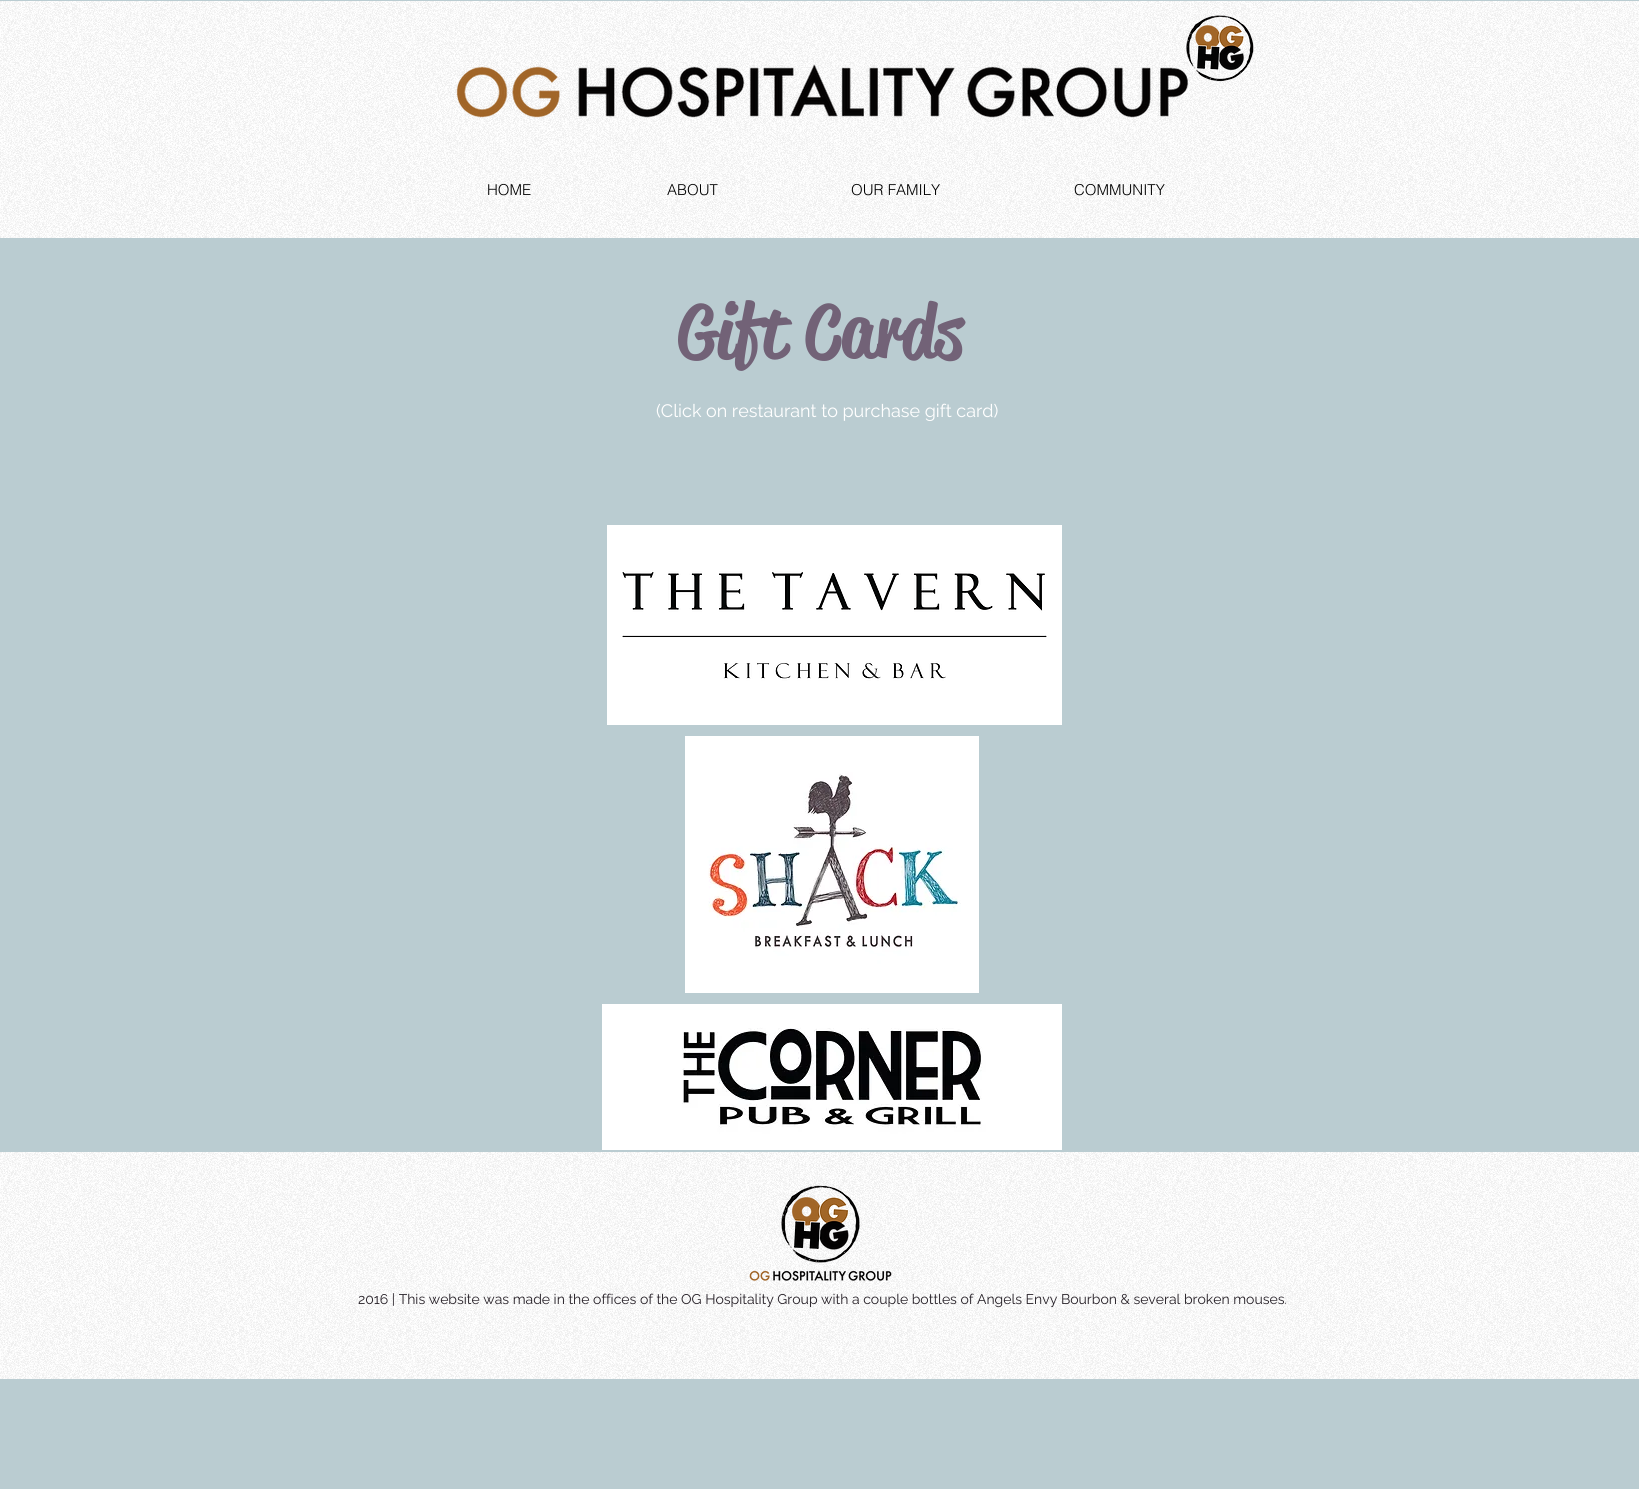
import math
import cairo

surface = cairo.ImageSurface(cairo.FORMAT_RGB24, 1639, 1489)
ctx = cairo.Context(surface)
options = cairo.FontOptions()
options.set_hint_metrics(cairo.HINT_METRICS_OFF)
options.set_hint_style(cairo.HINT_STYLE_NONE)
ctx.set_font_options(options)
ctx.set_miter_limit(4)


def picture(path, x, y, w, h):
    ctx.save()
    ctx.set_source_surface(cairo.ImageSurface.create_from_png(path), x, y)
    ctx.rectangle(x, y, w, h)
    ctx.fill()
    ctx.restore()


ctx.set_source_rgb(0.729, 0.8, 0.82)
ctx.paint()
ctx.set_source_rgb(1, 1, 1)
ctx.rectangle(0, 1, 1639, 237)
ctx.fill()
picture("img1.png", 0, 1, 1639, 237)
picture("img3.png", 456, 64, 732, 54)
picture("img2.png", 1186, 15, 68, 67)
ctx.select_font_face("helvetica Light")
ctx.set_font_size(15)
ctx.set_source_rgb(0, 0, 0)
ctx.move_to(487, 195)
ctx.show_text("HOME")
ctx.move_to(667, 195)
ctx.show_text("ABOUT")
ctx.move_to(851, 195)
ctx.show_text("OUR FAMILY")
ctx.move_to(1074, 195)
ctx.show_text("COMMUNITY")
ctx.select_font_face("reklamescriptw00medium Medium")
ctx.set_font_size(75)
ctx.set_source_rgb(0.447, 0.384, 0.467)
ctx.move_to(678, 357)
ctx.show_text("Gift Cards")
ctx.select_font_face("Raleway")
ctx.set_font_size(18)
ctx.set_source_rgb(1, 1, 1)
ctx.move_to(656, 417)
ctx.show_text("(Click on restaurant to purchase gift card)")
picture("img4.png", 607, 525, 455, 200)
picture("img5.png", 685, 736, 294, 257)
picture("img6.png", 602, 1004, 460, 146)
ctx.rectangle(0, 1152, 1639, 227)
ctx.fill()
picture("img7.png", 0, 1152, 1639, 227)
picture("img8.png", 749, 1185, 143, 96)
ctx.set_font_size(14)
ctx.set_source_rgb(0.149, 0.125, 0.153)
ctx.move_to(358, 1304)
ctx.show_text("2016 | This website was made in the offices of the OG Hospitality Group with a couple bottles of Angels Envy Bourbon & several broken mouses.")
surface.write_to_png("page.png")
